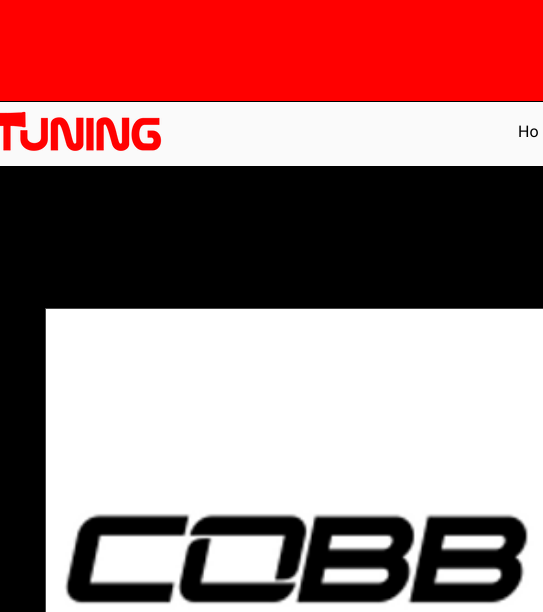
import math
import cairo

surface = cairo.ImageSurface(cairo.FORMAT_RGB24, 543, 612)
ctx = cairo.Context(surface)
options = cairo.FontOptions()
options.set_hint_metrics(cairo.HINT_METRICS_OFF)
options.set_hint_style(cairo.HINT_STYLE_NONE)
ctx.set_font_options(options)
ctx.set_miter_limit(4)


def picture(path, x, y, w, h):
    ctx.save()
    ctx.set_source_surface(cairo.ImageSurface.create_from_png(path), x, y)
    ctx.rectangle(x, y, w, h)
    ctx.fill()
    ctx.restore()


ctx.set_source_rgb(0, 0, 0)
ctx.paint()
ctx.set_source_rgb(1, 0, 0)
ctx.rectangle(0, 0, 543, 101)
ctx.fill()
ctx.set_source_rgb(0.98, 0.98, 0.98)
ctx.rectangle(0, 102, 543, 64)
ctx.fill()
picture("img1.png", 0, 111, 162, 40)
ctx.select_font_face("Roboto")
ctx.set_font_size(16)
ctx.set_source_rgb(0, 0, 0)
ctx.move_to(518, 137)
ctx.show_text("Ho")
ctx.rectangle(45.5, 308.5, 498, 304)
ctx.set_source_rgb(0.278, 0.278, 0.278)
ctx.set_line_width(1)
ctx.stroke()
picture("img2.png", 46, 309, 497, 303)
surface.write_to_png("page.png")
